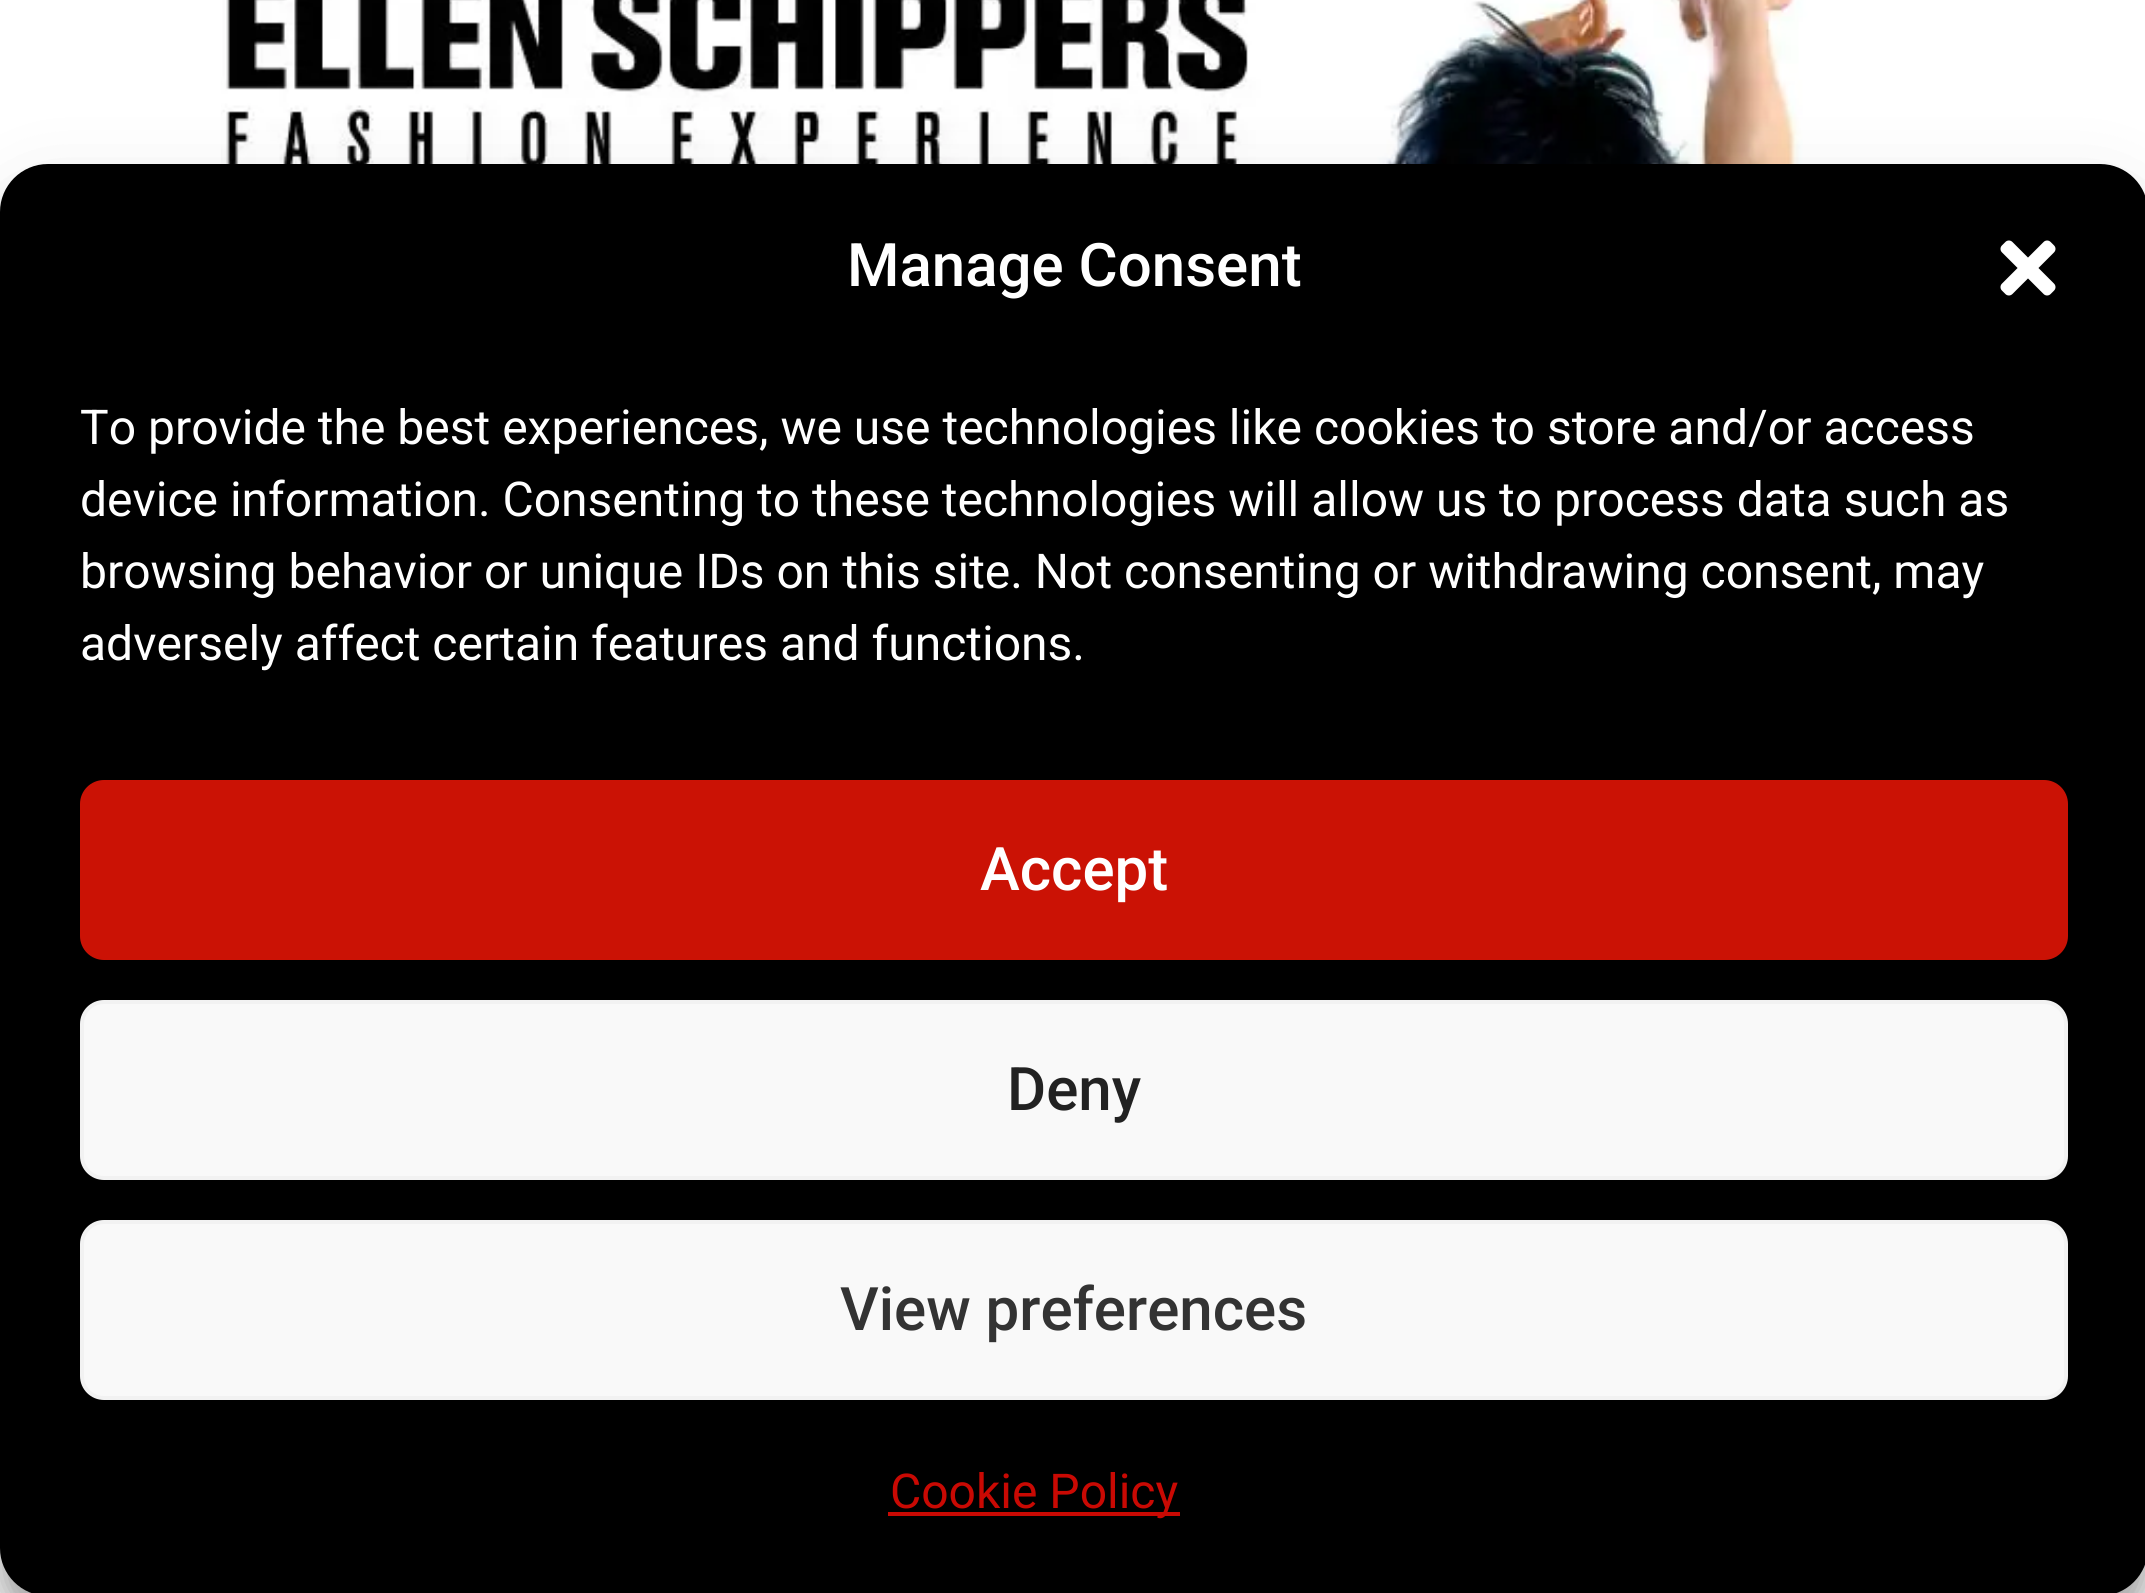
import math
import cairo

surface = cairo.ImageSurface(cairo.FORMAT_RGB24, 2145, 1593)
ctx = cairo.Context(surface)
options = cairo.FontOptions()
options.set_hint_metrics(cairo.HINT_METRICS_OFF)
options.set_hint_style(cairo.HINT_STYLE_NONE)
ctx.set_font_options(options)
ctx.set_miter_limit(4)


def round_rect(x, y, w, h, r):
    ctx.new_sub_path()
    for i, (u, v) in enumerate([(x + w - r, y + h - r), (x + r, y + h - r), (x + r, y + r), (x + w - r, y + r)]):
        ctx.arc(u, v, r, i * math.pi / 2, (i + 1) * math.pi / 2)
    ctx.close_path()


def shadow(x, y, w, h, r, blur, alpha):
    ctx.push_group_with_content(cairo.CONTENT_ALPHA)
    ctx.set_operator(cairo.OPERATOR_SOURCE)
    for i in range(15, -16, -2):
        e = blur * i / 6
        if min(w, h) + 2 * e > 0:
            ctx.set_source_rgba(0, 0, 0, alpha * math.erfc((i - 1) / 8.5) / 2)
            round_rect(x - e, y - e, w + 2 * e, h + 2 * e, max(0, min(r + e + blur * .6, min(w, h) / 2 + e)))
            ctx.fill()
    ctx.mask(ctx.pop_group())


def picture(path, x, y, w, h):
    ctx.save()
    ctx.set_source_surface(cairo.ImageSurface.create_from_png(path), x, y)
    ctx.rectangle(x, y, w, h)
    ctx.fill()
    ctx.restore()


ctx.set_source_rgb(1, 1, 1)
ctx.paint()
picture("img1.png", 221, 0, 1750, 164)
ctx.set_source_rgb(0, 0, 0)
shadow(0, 188, 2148, 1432, 48, 12, 0.23)
shadow(0, 204, 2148, 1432, 48, 40, 0.19)
ctx.set_source_rgb(0, 0, 0)
round_rect(0, 164, 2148, 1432, 48)
ctx.fill()
ctx.select_font_face("Roboto Medium")
ctx.set_font_size(60)
ctx.set_source_rgb(1, 1, 1)
ctx.move_to(847, 286)
ctx.show_text("Manage Consent")
picture("img2.png", 2000, 240, 56, 56)
ctx.select_font_face("Roboto")
ctx.set_font_size(48)
ctx.move_to(80, 444)
ctx.show_text("To provide the best experiences, we use technologies like cookies to store and/or access")
ctx.move_to(80, 516)
ctx.show_text("device information. Consenting to these technologies will allow us to process data such as")
ctx.move_to(80, 588)
ctx.show_text("browsing behavior or unique IDs on this site. Not consenting or withdrawing consent, may")
ctx.move_to(80, 660)
ctx.show_text("adversely affect certain features and functions.")
ctx.set_source_rgb(0.796, 0.071, 0.02)
round_rect(82, 782, 1984, 176, 22)
ctx.fill_preserve()
ctx.set_line_width(4)
ctx.stroke()
ctx.select_font_face("Roboto Medium")
ctx.set_font_size(60)
ctx.set_source_rgb(1, 1, 1)
ctx.move_to(980, 890)
ctx.show_text("Accept")
ctx.set_source_rgb(0.976, 0.976, 0.976)
round_rect(82, 1002, 1984, 176, 22)
ctx.fill_preserve()
ctx.set_source_rgb(0.949, 0.949, 0.949)
ctx.stroke()
ctx.set_source_rgb(0.133, 0.133, 0.133)
ctx.move_to(1007, 1110)
ctx.show_text("Deny")
ctx.set_source_rgb(0.976, 0.976, 0.976)
round_rect(82, 1222, 1984, 176, 22)
ctx.fill_preserve()
ctx.set_source_rgb(0.949, 0.949, 0.949)
ctx.stroke()
ctx.set_source_rgb(0.2, 0.2, 0.2)
ctx.move_to(840, 1330)
ctx.show_text("View preferences")
ctx.set_source_rgb(0.788, 0.039, 0.012)
ctx.rectangle(888, 1512, 292, 4)
ctx.fill()
ctx.select_font_face("Roboto")
ctx.set_font_size(48)
ctx.move_to(890, 1508)
ctx.show_text("Cookie Policy")
surface.write_to_png("page.png")
